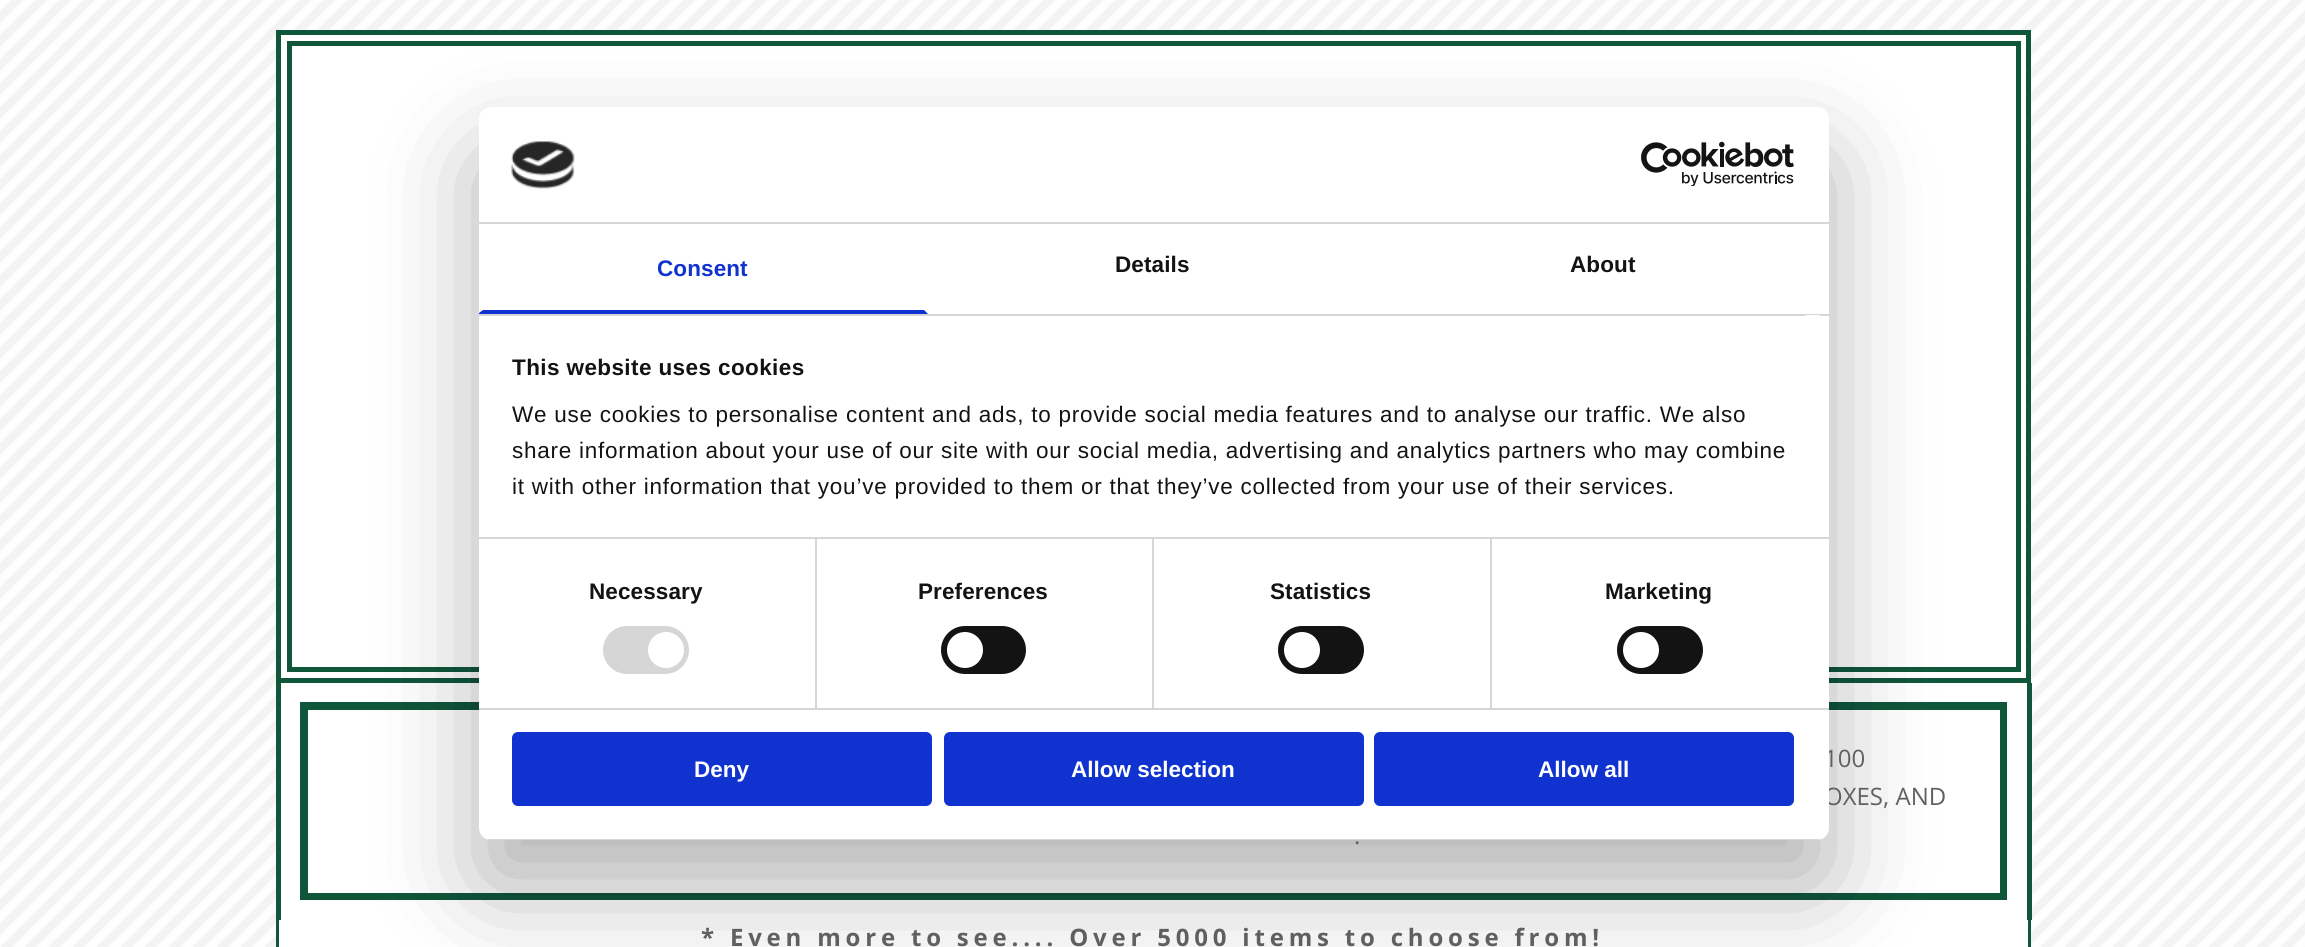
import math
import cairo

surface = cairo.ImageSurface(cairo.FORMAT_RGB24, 2305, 947)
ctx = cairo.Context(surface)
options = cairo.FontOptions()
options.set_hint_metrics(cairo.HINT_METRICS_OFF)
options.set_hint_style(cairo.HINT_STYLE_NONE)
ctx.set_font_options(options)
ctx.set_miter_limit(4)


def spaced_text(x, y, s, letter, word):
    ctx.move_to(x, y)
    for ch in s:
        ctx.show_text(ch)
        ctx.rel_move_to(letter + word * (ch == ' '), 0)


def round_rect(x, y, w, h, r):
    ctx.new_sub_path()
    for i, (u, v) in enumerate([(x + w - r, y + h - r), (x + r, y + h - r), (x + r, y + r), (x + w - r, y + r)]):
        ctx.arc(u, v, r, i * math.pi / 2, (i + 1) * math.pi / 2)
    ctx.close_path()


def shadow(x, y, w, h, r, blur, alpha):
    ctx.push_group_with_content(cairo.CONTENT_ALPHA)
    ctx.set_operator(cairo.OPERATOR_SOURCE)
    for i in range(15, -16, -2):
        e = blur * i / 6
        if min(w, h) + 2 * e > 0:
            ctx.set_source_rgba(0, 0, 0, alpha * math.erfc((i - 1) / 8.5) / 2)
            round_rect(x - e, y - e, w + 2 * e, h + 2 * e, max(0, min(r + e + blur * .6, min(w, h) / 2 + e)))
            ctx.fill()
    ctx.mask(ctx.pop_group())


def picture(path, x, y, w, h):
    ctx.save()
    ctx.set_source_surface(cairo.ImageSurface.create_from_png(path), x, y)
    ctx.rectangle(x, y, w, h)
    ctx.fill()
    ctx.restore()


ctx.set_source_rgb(1, 1, 1)
ctx.paint()
picture("img1.png", 0, 0, 2305, 947)
ctx.set_source_rgb(1, 1, 1)
ctx.rectangle(278.5, 32.5, 1750, 648)
ctx.fill_preserve()
ctx.set_source_rgb(0.059, 0.337, 0.231)
ctx.set_line_width(5)
ctx.stroke()
ctx.rectangle(289.5, 43.5, 1729, 626)
ctx.stroke()
ctx.set_source_rgb(1, 1, 1)
ctx.rectangle(281, 683, 1746, 237)
ctx.fill()
ctx.set_source_rgb(0.059, 0.337, 0.231)
ctx.rectangle(300, 702, 179, 8)
ctx.fill()
ctx.rectangle(300, 893, 854, 7)
ctx.fill()
ctx.rectangle(1829, 702, 178, 8)
ctx.fill()
ctx.rectangle(2000, 702, 7, 198)
ctx.fill()
ctx.rectangle(1154, 893, 853, 7)
ctx.fill()
ctx.set_source_rgb(1, 1, 1)
ctx.rectangle(279, 920, 1749, 27)
ctx.fill()
ctx.set_source_rgb(0, 0, 0)
shadow(479, 155, 1350, 733, 12, 51, 0.3)
ctx.select_font_face("Open Sans")
ctx.set_font_size(24)
ctx.set_source_rgb(0.376, 0.376, 0.376)
ctx.move_to(1824, 767)
ctx.show_text("100")
ctx.move_to(1824, 805)
ctx.show_text("OXES, AND")
ctx.set_source_rgb(1, 1, 1)
round_rect(479, 107, 1350, 733, 12)
ctx.fill()
ctx.set_source_rgb(0.839, 0.839, 0.839)
ctx.rectangle(479, 222, 1350, 2)
ctx.fill()
picture("img2.png", 511, 141, 64, 48)
picture("img3.png", 1641, 141, 153, 45)
ctx.rectangle(479, 314, 1350, 2)
ctx.fill()
ctx.set_source_rgb(0.063, 0.196, 0.812)
ctx.new_path()
ctx.move_to(928, 314)
ctx.line_to(479, 314)
ctx.line_to(479, 313)
ctx.line_to(483, 310)
ctx.line_to(924, 310)
ctx.close_path()
ctx.fill()
ctx.select_font_face("Liberation Sans", cairo.FONT_SLANT_NORMAL, cairo.FONT_WEIGHT_BOLD)
ctx.set_font_size(22.5)
spaced_text(657, 276, "Consent", 0.1, 0)
ctx.set_source_rgb(0.078, 0.078, 0.078)
spaced_text(1115, 272, "Details", 0.1, 0)
spaced_text(1570, 272, "About", 0.1, 0)
ctx.set_source_rgb(0.839, 0.839, 0.839)
ctx.rectangle(479, 537, 1350, 2)
ctx.fill()
ctx.set_source_rgb(1, 1, 1)
ctx.rectangle(1806, 315, 14, 1)
ctx.fill()
ctx.set_source_rgb(0.078, 0.078, 0.078)
spaced_text(512, 375, "This website uses cookies", 0.4, 0)
ctx.select_font_face("Liberation Sans")
spaced_text(512, 422, "We use cookies to personalise content and ads, to provide social media features and to analyse our traffic. We also", 0.75, 0)
spaced_text(512, 458, "share information about your use of our site with our social media, advertising and analytics partners who may combine", 0.75, 0)
spaced_text(512, 494, "it with other information that you’ve provided to them or that they’ve collected from your use of their services.", 0.75, 0)
ctx.set_source_rgb(0.839, 0.839, 0.839)
ctx.rectangle(479, 708, 1350, 2)
ctx.fill()
ctx.rectangle(815, 539, 2, 169)
ctx.fill()
ctx.select_font_face("Liberation Sans", cairo.FONT_SLANT_NORMAL, cairo.FONT_WEIGHT_BOLD)
ctx.set_source_rgb(0.078, 0.078, 0.078)
spaced_text(589, 599, "Necessary", 0.1, 0)
ctx.set_source_rgb(0.839, 0.839, 0.839)
round_rect(603, 626, 86, 48, 24)
ctx.fill()
ctx.set_source_rgb(1, 1, 1)
ctx.arc(666, 650, 18, 0, 2 * math.pi)
ctx.fill()
ctx.set_source_rgb(0.839, 0.839, 0.839)
ctx.rectangle(1152, 539, 2, 169)
ctx.fill()
ctx.set_source_rgb(0.078, 0.078, 0.078)
spaced_text(918, 599, "Preferences", 0.1, 0)
round_rect(941, 626, 85, 48, 24)
ctx.fill()
ctx.set_source_rgb(1, 1, 1)
ctx.arc(965, 650, 18, 0, 2 * math.pi)
ctx.fill()
ctx.set_source_rgb(0.839, 0.839, 0.839)
ctx.rectangle(1490, 539, 2, 169)
ctx.fill()
ctx.set_source_rgb(0.078, 0.078, 0.078)
spaced_text(1270, 599, "Statistics", 0.1, 0)
round_rect(1278, 626, 86, 48, 24)
ctx.fill()
ctx.set_source_rgb(1, 1, 1)
ctx.arc(1302, 650, 18, 0, 2 * math.pi)
ctx.fill()
ctx.set_source_rgb(0.078, 0.078, 0.078)
spaced_text(1605, 599, "Marketing", 0.1, 0)
round_rect(1617, 626, 86, 48, 24)
ctx.fill()
ctx.set_source_rgb(1, 1, 1)
ctx.arc(1641, 650, 18, 0, 2 * math.pi)
ctx.fill()
ctx.save()
round_rect(479, 107, 1350, 733, 12)
ctx.clip()
ctx.set_source_rgb(0.839, 0.839, 0.839)
ctx.rectangle(479, 839, 1350, 1)
ctx.fill()
ctx.restore()
ctx.set_source_rgb(0.063, 0.196, 0.812)
round_rect(513.5, 733.5, 417, 71, 4.5)
ctx.fill_preserve()
ctx.set_line_width(3)
ctx.stroke()
ctx.set_source_rgb(1, 1, 1)
ctx.move_to(694, 777)
ctx.show_text("Deny")
ctx.set_source_rgb(0.063, 0.196, 0.812)
round_rect(945.5, 733.5, 417, 71, 4.5)
ctx.fill_preserve()
ctx.stroke()
ctx.set_source_rgb(1, 1, 1)
ctx.move_to(1071, 777)
ctx.show_text("Allow selection")
ctx.set_source_rgb(0.063, 0.196, 0.812)
round_rect(1375.5, 733.5, 417, 71, 4.5)
ctx.fill_preserve()
ctx.stroke()
ctx.set_source_rgb(1, 1, 1)
ctx.move_to(1538, 777)
ctx.show_text("Allow all")
ctx.set_source_rgb(0.059, 0.337, 0.231)
ctx.rectangle(2027, 683, 5, 237)
ctx.fill()
ctx.rectangle(276, 683, 5, 237)
ctx.fill()
ctx.rectangle(300, 702, 8, 198)
ctx.fill()
ctx.select_font_face("Open Sans")
ctx.set_font_size(24)
ctx.set_source_rgb(0.376, 0.376, 0.376)
ctx.move_to(1354, 844)
ctx.show_text(".")
ctx.set_source_rgb(0.059, 0.337, 0.231)
ctx.rectangle(2028, 920, 3, 27)
ctx.fill()
ctx.rectangle(276, 920, 3, 27)
ctx.fill()
ctx.select_font_face("Open Sans", cairo.FONT_SLANT_NORMAL, cairo.FONT_WEIGHT_BOLD)
ctx.set_source_rgb(0.376, 0.376, 0.376)
spaced_text(701, 946, "* Even more to see.... Over 5000 items to choose from!", 4.8, 0)
surface.write_to_png("page.png")
